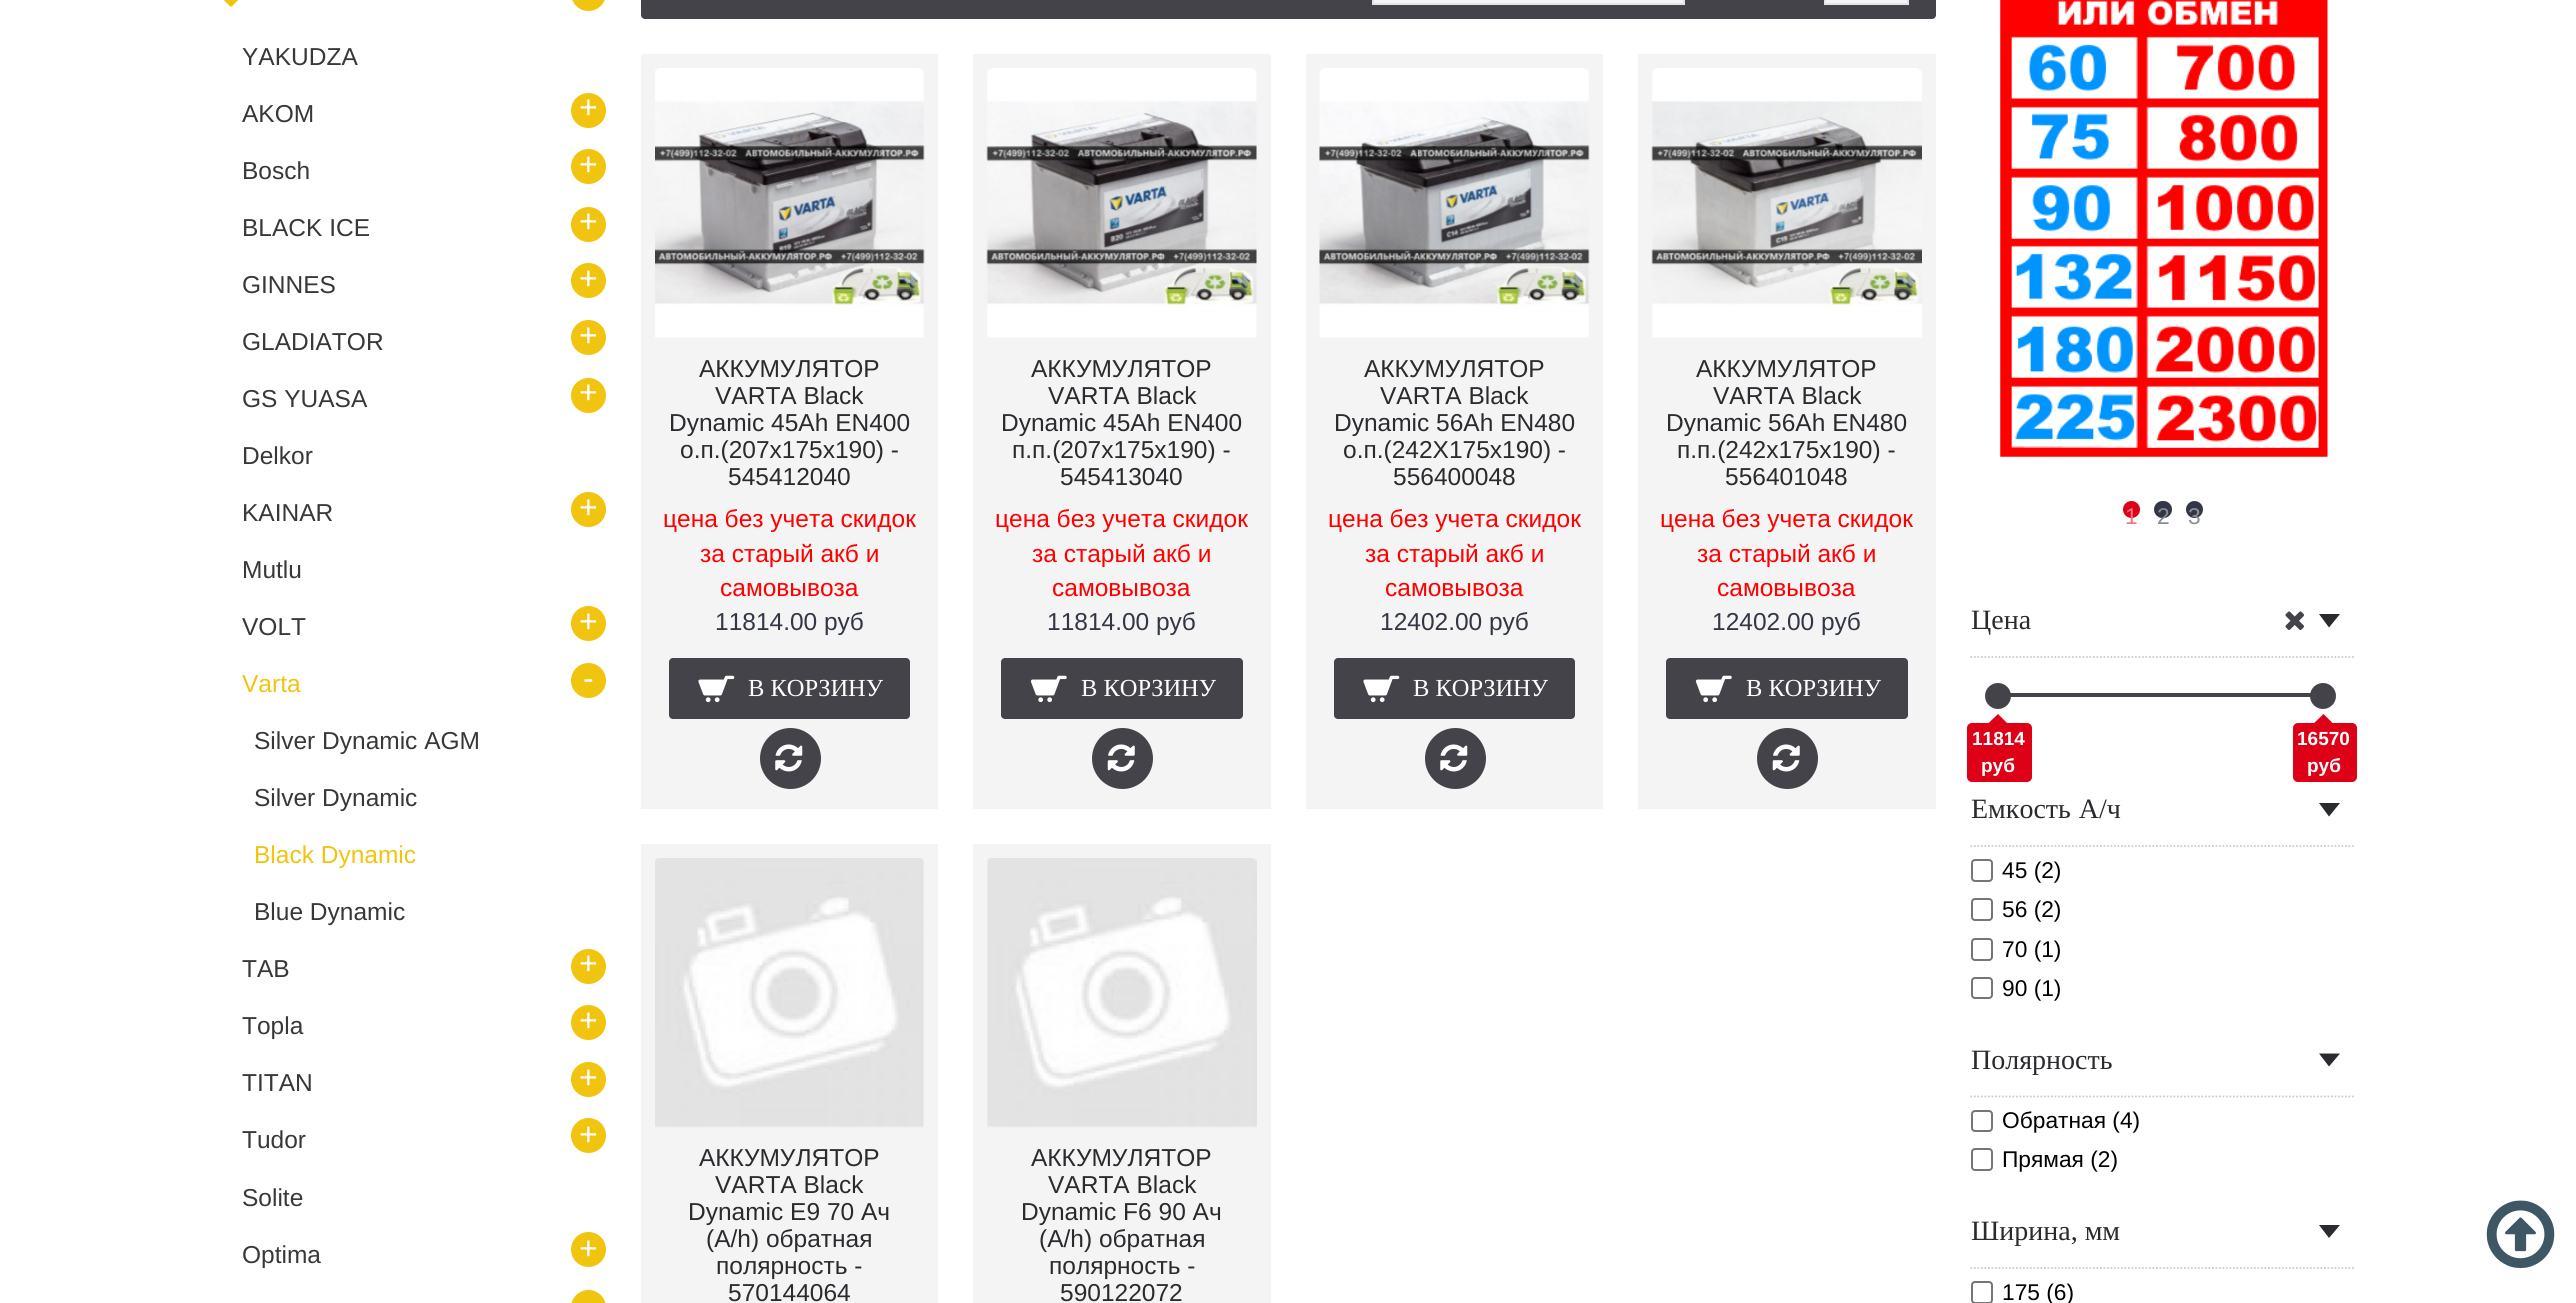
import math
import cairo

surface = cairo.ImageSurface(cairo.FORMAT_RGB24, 2576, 1303)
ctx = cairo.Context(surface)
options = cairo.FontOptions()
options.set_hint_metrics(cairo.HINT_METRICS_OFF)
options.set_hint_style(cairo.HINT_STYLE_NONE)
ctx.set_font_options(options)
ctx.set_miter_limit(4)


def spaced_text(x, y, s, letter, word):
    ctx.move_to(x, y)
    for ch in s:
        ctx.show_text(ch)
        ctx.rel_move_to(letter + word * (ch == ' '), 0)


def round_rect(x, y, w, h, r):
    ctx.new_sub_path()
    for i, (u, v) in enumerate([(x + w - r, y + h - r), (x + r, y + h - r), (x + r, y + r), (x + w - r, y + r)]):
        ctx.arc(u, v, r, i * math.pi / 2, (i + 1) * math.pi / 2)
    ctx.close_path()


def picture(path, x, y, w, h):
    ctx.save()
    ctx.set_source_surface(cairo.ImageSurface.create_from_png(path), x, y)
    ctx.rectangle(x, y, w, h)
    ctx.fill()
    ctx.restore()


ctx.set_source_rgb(1, 1, 1)
ctx.paint()
picture("img1.png", 223, 0, 16, 7)
ctx.set_source_rgb(0.945, 0.769, 0.059)
round_rect(571, -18, 35, 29, 17.5)
ctx.fill()
ctx.select_font_face("Liberation Sans")
ctx.set_font_size(24.5)
ctx.set_source_rgb(0.22, 0.22, 0.22)
ctx.move_to(242, 65)
ctx.show_text("YAKUDZA")
ctx.move_to(242, 122)
ctx.show_text("AKOM")
ctx.set_source_rgb(0.945, 0.769, 0.059)
ctx.new_path()
ctx.arc(588.5, 110.5, 17.5, 0, 2 * math.pi)
ctx.fill()
ctx.set_font_size(32)
ctx.set_source_rgb(1, 1, 1)
ctx.move_to(579, 118)
ctx.show_text("+")
ctx.set_font_size(24.5)
ctx.set_source_rgb(0.22, 0.22, 0.22)
ctx.move_to(242, 179)
ctx.show_text("Bosch")
ctx.set_source_rgb(0.945, 0.769, 0.059)
ctx.new_path()
ctx.arc(588.5, 166.5, 17.5, 0, 2 * math.pi)
ctx.fill()
ctx.set_font_size(32)
ctx.set_source_rgb(1, 1, 1)
ctx.move_to(579, 175)
ctx.show_text("+")
ctx.set_font_size(24.5)
ctx.set_source_rgb(0.22, 0.22, 0.22)
ctx.move_to(242, 236)
ctx.show_text("BLACK ICE")
ctx.set_source_rgb(0.945, 0.769, 0.059)
ctx.new_path()
ctx.arc(588.5, 224.5, 17.5, 0, 2 * math.pi)
ctx.fill()
ctx.set_font_size(32)
ctx.set_source_rgb(1, 1, 1)
ctx.move_to(579, 232)
ctx.show_text("+")
ctx.set_font_size(24.5)
ctx.set_source_rgb(0.22, 0.22, 0.22)
ctx.move_to(242, 293)
ctx.show_text("GINNES")
ctx.set_source_rgb(0.945, 0.769, 0.059)
ctx.new_path()
ctx.arc(588.5, 280.5, 17.5, 0, 2 * math.pi)
ctx.fill()
ctx.set_font_size(32)
ctx.set_source_rgb(1, 1, 1)
ctx.move_to(579, 289)
ctx.show_text("+")
ctx.set_font_size(24.5)
ctx.set_source_rgb(0.22, 0.22, 0.22)
ctx.move_to(242, 350)
ctx.show_text("GLADIATOR")
ctx.set_source_rgb(0.945, 0.769, 0.059)
ctx.new_path()
ctx.arc(588.5, 337.5, 17.5, 0, 2 * math.pi)
ctx.fill()
ctx.set_font_size(32)
ctx.set_source_rgb(1, 1, 1)
ctx.move_to(579, 346)
ctx.show_text("+")
ctx.set_font_size(24.5)
ctx.set_source_rgb(0.22, 0.22, 0.22)
ctx.move_to(242, 407)
ctx.show_text("GS YUASA")
ctx.set_source_rgb(0.945, 0.769, 0.059)
ctx.new_path()
ctx.arc(588.5, 395.5, 17.5, 0, 2 * math.pi)
ctx.fill()
ctx.set_font_size(32)
ctx.set_source_rgb(1, 1, 1)
ctx.move_to(579, 403)
ctx.show_text("+")
ctx.set_font_size(24.5)
ctx.set_source_rgb(0.22, 0.22, 0.22)
ctx.move_to(242, 464)
ctx.show_text("Delkor")
ctx.move_to(242, 521)
ctx.show_text("KAINAR")
ctx.set_source_rgb(0.945, 0.769, 0.059)
ctx.new_path()
ctx.arc(588.5, 509.5, 17.5, 0, 2 * math.pi)
ctx.fill()
ctx.set_font_size(32)
ctx.set_source_rgb(1, 1, 1)
ctx.move_to(579, 518)
ctx.show_text("+")
ctx.set_font_size(24.5)
ctx.set_source_rgb(0.22, 0.22, 0.22)
ctx.move_to(242, 578)
ctx.show_text("Mutlu")
ctx.move_to(242, 635)
ctx.show_text("VOLT")
ctx.set_source_rgb(0.945, 0.769, 0.059)
ctx.new_path()
ctx.arc(588.5, 623.5, 17.5, 0, 2 * math.pi)
ctx.fill()
ctx.set_font_size(32)
ctx.set_source_rgb(1, 1, 1)
ctx.move_to(579, 632)
ctx.show_text("+")
ctx.set_font_size(24.5)
ctx.set_source_rgb(0.945, 0.769, 0.059)
ctx.move_to(242, 692)
ctx.show_text("Varta")
ctx.new_path()
ctx.arc(588.5, 680.5, 17.5, 0, 2 * math.pi)
ctx.fill()
ctx.set_font_size(32)
ctx.set_source_rgb(1, 1, 1)
ctx.move_to(583, 689)
ctx.show_text("-")
ctx.set_font_size(24.5)
ctx.set_source_rgb(0.22, 0.22, 0.22)
ctx.move_to(254, 749)
ctx.show_text("Silver Dynamic AGM")
ctx.move_to(254, 806)
ctx.show_text("Silver Dynamic")
ctx.set_source_rgb(0.945, 0.769, 0.059)
ctx.move_to(254, 863)
ctx.show_text("Black Dynamic")
ctx.set_source_rgb(0.22, 0.22, 0.22)
ctx.move_to(254, 920)
ctx.show_text("Blue Dynamic")
ctx.move_to(242, 977)
ctx.show_text("TAB")
ctx.set_source_rgb(0.945, 0.769, 0.059)
ctx.new_path()
ctx.arc(588.5, 966.5, 17.5, 0, 2 * math.pi)
ctx.fill()
ctx.set_font_size(32)
ctx.set_source_rgb(1, 1, 1)
ctx.move_to(579, 974)
ctx.show_text("+")
ctx.set_font_size(24.5)
ctx.set_source_rgb(0.22, 0.22, 0.22)
ctx.move_to(242, 1034)
ctx.show_text("Topla")
ctx.set_source_rgb(0.945, 0.769, 0.059)
ctx.new_path()
ctx.arc(588.5, 1022.5, 17.5, 0, 2 * math.pi)
ctx.fill()
ctx.set_font_size(32)
ctx.set_source_rgb(1, 1, 1)
ctx.move_to(579, 1031)
ctx.show_text("+")
ctx.set_font_size(24.5)
ctx.set_source_rgb(0.22, 0.22, 0.22)
ctx.move_to(242, 1091)
ctx.show_text("TITAN")
ctx.set_source_rgb(0.945, 0.769, 0.059)
ctx.new_path()
ctx.arc(588.5, 1079.5, 17.5, 0, 2 * math.pi)
ctx.fill()
ctx.set_font_size(32)
ctx.set_source_rgb(1, 1, 1)
ctx.move_to(579, 1088)
ctx.show_text("+")
ctx.set_font_size(24.5)
ctx.set_source_rgb(0.22, 0.22, 0.22)
ctx.move_to(242, 1148)
ctx.show_text("Tudor")
ctx.set_source_rgb(0.945, 0.769, 0.059)
ctx.new_path()
ctx.arc(588.5, 1135.5, 17.5, 0, 2 * math.pi)
ctx.fill()
ctx.set_font_size(32)
ctx.set_source_rgb(1, 1, 1)
ctx.move_to(579, 1145)
ctx.show_text("+")
ctx.set_font_size(24.5)
ctx.set_source_rgb(0.22, 0.22, 0.22)
ctx.move_to(242, 1206)
ctx.show_text("Solite")
ctx.move_to(242, 1263)
ctx.show_text("Optima")
ctx.set_source_rgb(0.945, 0.769, 0.059)
ctx.new_path()
ctx.arc(588.5, 1249.5, 17.5, 0, 2 * math.pi)
ctx.fill()
ctx.set_font_size(32)
ctx.set_source_rgb(1, 1, 1)
ctx.move_to(579, 1259)
ctx.show_text("+")
ctx.set_source_rgb(0.945, 0.769, 0.059)
round_rect(571, 1290, 35, 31, 17.5)
ctx.fill()
ctx.set_source_rgb(0.267, 0.263, 0.286)
round_rect(641, -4, 1295, 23, 4)
ctx.fill()
ctx.set_source_rgb(0.957, 0.957, 0.957)
ctx.rectangle(1373, -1, 311, 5)
ctx.fill_preserve()
ctx.set_source_rgb(0.894, 0.894, 0.894)
ctx.stroke()
ctx.set_source_rgb(0.957, 0.957, 0.957)
ctx.rectangle(1825, -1, 83, 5)
ctx.fill_preserve()
ctx.set_source_rgb(0.894, 0.894, 0.894)
ctx.stroke()
ctx.set_source_rgb(0.957, 0.957, 0.957)
ctx.rectangle(641, 54, 297, 755)
ctx.fill()
picture("img2.png", 655, 68, 270, 270)
ctx.set_font_size(24.5)
ctx.set_source_rgb(0.165, 0.169, 0.18)
ctx.move_to(699, 377)
ctx.show_text("АККУМУЛЯТОР")
ctx.move_to(715, 404)
ctx.show_text("VARTA Black")
ctx.move_to(669, 431)
ctx.show_text("Dynamic 45Ah EN400")
ctx.move_to(680, 458)
ctx.show_text("о.п.(207х175х190) -")
ctx.move_to(728, 485)
ctx.show_text("545412040")
ctx.set_source_rgb(1, 0, 0)
ctx.move_to(663, 527)
ctx.show_text("цена без учета скидок")
ctx.move_to(700, 562)
ctx.show_text("за старый акб и")
ctx.move_to(720, 596)
ctx.show_text("самовывоза")
ctx.set_source_rgb(0.2, 0.216, 0.271)
ctx.move_to(715, 630)
ctx.show_text("11814.00 руб")
ctx.set_source_rgb(0.267, 0.263, 0.286)
round_rect(669, 658, 241, 61, 4)
ctx.fill()
picture("img3.png", 698, 675, 37, 28)
ctx.select_font_face("Liberation Serif")
ctx.set_source_rgb(1, 1, 1)
ctx.move_to(748, 696)
ctx.show_text("В КОРЗИНУ")
ctx.set_source_rgb(0.267, 0.263, 0.286)
ctx.new_path()
ctx.arc(790.5, 758.5, 30.5, 0, 2 * math.pi)
ctx.fill()
picture("img4.png", 775, 744, 28, 28)
ctx.set_source_rgb(0.957, 0.957, 0.957)
ctx.rectangle(973, 54, 298, 755)
ctx.fill()
picture("img5.png", 986, 68, 271, 270)
ctx.select_font_face("Liberation Sans")
ctx.set_source_rgb(0.165, 0.169, 0.18)
ctx.move_to(1031, 377)
ctx.show_text("АККУМУЛЯТОР")
ctx.move_to(1048, 404)
ctx.show_text("VARTA Black")
ctx.move_to(1001, 431)
ctx.show_text("Dynamic 45Ah EN400")
ctx.move_to(1012, 458)
ctx.show_text("п.п.(207х175х190) -")
ctx.move_to(1060, 485)
ctx.show_text("545413040")
ctx.set_source_rgb(1, 0, 0)
ctx.move_to(995, 527)
ctx.show_text("цена без учета скидок")
ctx.move_to(1032, 562)
ctx.show_text("за старый акб и")
ctx.move_to(1052, 596)
ctx.show_text("самовывоза")
ctx.set_source_rgb(0.2, 0.216, 0.271)
ctx.move_to(1047, 630)
ctx.show_text("11814.00 руб")
ctx.set_source_rgb(0.267, 0.263, 0.286)
round_rect(1001, 658, 242, 61, 4)
ctx.fill()
picture("img6.png", 1030, 675, 37, 28)
ctx.select_font_face("Liberation Serif")
ctx.set_source_rgb(1, 1, 1)
ctx.move_to(1081, 696)
ctx.show_text("В КОРЗИНУ")
ctx.set_source_rgb(0.267, 0.263, 0.286)
ctx.new_path()
ctx.arc(1122.5, 758.5, 30.5, 0, 2 * math.pi)
ctx.fill()
picture("img7.png", 1107, 744, 28, 28)
ctx.set_source_rgb(0.957, 0.957, 0.957)
ctx.rectangle(1306, 54, 297, 755)
ctx.fill()
picture("img8.png", 1319, 68, 271, 270)
ctx.select_font_face("Liberation Sans")
ctx.set_source_rgb(0.165, 0.169, 0.18)
ctx.move_to(1364, 377)
ctx.show_text("АККУМУЛЯТОР")
ctx.move_to(1380, 404)
ctx.show_text("VARTA Black")
ctx.move_to(1334, 431)
ctx.show_text("Dynamic 56Ah EN480")
ctx.move_to(1343, 458)
ctx.show_text("о.п.(242Х175х190) -")
ctx.move_to(1393, 485)
ctx.show_text("556400048")
ctx.set_source_rgb(1, 0, 0)
ctx.move_to(1328, 527)
ctx.show_text("цена без учета скидок")
ctx.move_to(1365, 562)
ctx.show_text("за старый акб и")
ctx.move_to(1385, 596)
ctx.show_text("самовывоза")
ctx.set_source_rgb(0.2, 0.216, 0.271)
ctx.move_to(1380, 630)
ctx.show_text("12402.00 руб")
ctx.set_source_rgb(0.267, 0.263, 0.286)
round_rect(1334, 658, 241, 61, 4)
ctx.fill()
picture("img3.png", 1363, 675, 37, 28)
ctx.select_font_face("Liberation Serif")
ctx.set_source_rgb(1, 1, 1)
ctx.move_to(1413, 696)
ctx.show_text("В КОРЗИНУ")
ctx.set_source_rgb(0.267, 0.263, 0.286)
ctx.new_path()
ctx.arc(1455.5, 758.5, 30.5, 0, 2 * math.pi)
ctx.fill()
picture("img4.png", 1440, 744, 28, 28)
ctx.set_source_rgb(0.957, 0.957, 0.957)
ctx.rectangle(1638, 54, 298, 755)
ctx.fill()
picture("img9.png", 1651, 68, 271, 270)
ctx.select_font_face("Liberation Sans")
ctx.set_source_rgb(0.165, 0.169, 0.18)
ctx.move_to(1696, 377)
ctx.show_text("АККУМУЛЯТОР")
ctx.move_to(1713, 404)
ctx.show_text("VARTA Black")
ctx.move_to(1666, 431)
ctx.show_text("Dynamic 56Ah EN480")
ctx.move_to(1677, 458)
ctx.show_text("п.п.(242х175х190) -")
ctx.move_to(1725, 485)
ctx.show_text("556401048")
ctx.set_source_rgb(1, 0, 0)
ctx.move_to(1660, 527)
ctx.show_text("цена без учета скидок")
ctx.move_to(1697, 562)
ctx.show_text("за старый акб и")
ctx.move_to(1717, 596)
ctx.show_text("самовывоза")
ctx.set_source_rgb(0.2, 0.216, 0.271)
ctx.move_to(1712, 630)
ctx.show_text("12402.00 руб")
ctx.set_source_rgb(0.267, 0.263, 0.286)
round_rect(1666, 658, 242, 61, 4)
ctx.fill()
picture("img6.png", 1695, 675, 37, 28)
ctx.select_font_face("Liberation Serif")
ctx.set_source_rgb(1, 1, 1)
ctx.move_to(1746, 696)
ctx.show_text("В КОРЗИНУ")
ctx.set_source_rgb(0.267, 0.263, 0.286)
ctx.new_path()
ctx.arc(1787.5, 758.5, 30.5, 0, 2 * math.pi)
ctx.fill()
picture("img7.png", 1772, 744, 28, 28)
ctx.set_source_rgb(0.957, 0.957, 0.957)
ctx.rectangle(641, 844, 297, 459)
ctx.fill()
picture("img10.png", 655, 858, 269, 270)
ctx.select_font_face("Liberation Sans")
ctx.set_source_rgb(0.165, 0.169, 0.18)
ctx.move_to(699, 1166)
ctx.show_text("АККУМУЛЯТОР")
ctx.move_to(715, 1193)
ctx.show_text("VARTA Black")
ctx.move_to(688, 1220)
ctx.show_text("Dynamic E9 70 Ач")
ctx.move_to(706, 1247)
ctx.show_text("(A/h) обратная")
ctx.move_to(716, 1274)
ctx.show_text("полярность -")
ctx.move_to(728, 1301)
ctx.show_text("570144064")
ctx.set_source_rgb(0.957, 0.957, 0.957)
ctx.rectangle(973, 844, 298, 459)
ctx.fill()
picture("img11.png", 987, 858, 270, 270)
ctx.set_source_rgb(0.165, 0.169, 0.18)
ctx.move_to(1031, 1166)
ctx.show_text("АККУМУЛЯТОР")
ctx.move_to(1048, 1193)
ctx.show_text("VARTA Black")
ctx.move_to(1021, 1220)
ctx.show_text("Dynamic F6 90 Ач")
ctx.move_to(1039, 1247)
ctx.show_text("(A/h) обратная")
ctx.move_to(1049, 1274)
ctx.show_text("полярность -")
ctx.move_to(1060, 1301)
ctx.show_text("590122072")
picture("img12.png", 2000, 0, 328, 457)
ctx.set_source_rgb(0.867, 0, 0.09)
ctx.arc(2131.5, 509.5, 8.5, 0, 2 * math.pi)
ctx.fill()
ctx.set_font_size(22.75)
ctx.set_source_rgb(0.929, 0.463, 0.51)
ctx.move_to(2125, 524)
ctx.show_text("1")
ctx.set_source_rgb(0.2, 0.216, 0.271)
round_rect(2154, 501, 18, 17, 8.5)
ctx.fill()
ctx.set_source_rgb(0.533, 0.541, 0.576)
ctx.move_to(2157, 524)
ctx.show_text("2")
ctx.set_source_rgb(0.2, 0.216, 0.271)
ctx.new_path()
ctx.arc(2194.5, 509.5, 8.5, 0, 2 * math.pi)
ctx.fill()
ctx.set_source_rgb(0.565, 0.573, 0.6)
ctx.move_to(2188, 524)
ctx.show_text("3")
ctx.new_path()
ctx.move_to(1970.5, 657)
ctx.line_to(2355.5, 657)
ctx.set_source_rgb(0.8, 0.8, 0.8)
ctx.set_line_width(1.8)
ctx.set_dash([1.75, 1.75])
ctx.stroke()
ctx.select_font_face("Liberation Serif")
ctx.set_font_size(28)
ctx.set_source_rgb(0.165, 0.169, 0.18)
ctx.move_to(1971, 629)
ctx.show_text("Цена")
ctx.new_path()
ctx.move_to(2340, 614)
ctx.line_to(2319, 614)
ctx.line_to(2329, 627.5)
ctx.close_path()
ctx.fill()
ctx.set_source_rgb(0.267, 0.263, 0.286)
ctx.rectangle(2010, 693, 301, 4)
ctx.fill()
ctx.arc(1998, 696, 13, 0, 2 * math.pi)
ctx.fill()
ctx.set_source_rgb(0.867, 0, 0.09)
round_rect(1967, 723, 65, 59, 5)
ctx.fill()
ctx.new_path()
ctx.move_to(2010, 726)
ctx.line_to(1985.5, 726)
ctx.line_to(1998, 714)
ctx.close_path()
ctx.fill()
ctx.select_font_face("Liberation Sans", cairo.FONT_SLANT_NORMAL, cairo.FONT_WEIGHT_BOLD)
ctx.set_font_size(19)
ctx.set_source_rgb(1, 1, 1)
ctx.move_to(1972, 745)
ctx.show_text("11814")
ctx.move_to(1981, 772)
ctx.show_text("руб")
ctx.set_source_rgb(0.267, 0.263, 0.286)
ctx.new_path()
ctx.arc(2323, 696, 13, 0, 2 * math.pi)
ctx.fill()
ctx.set_source_rgb(0.867, 0, 0.09)
round_rect(2293, 723, 64, 59, 5)
ctx.fill()
ctx.new_path()
ctx.move_to(2335.5, 726)
ctx.line_to(2311, 726)
ctx.line_to(2323.5, 714)
ctx.close_path()
ctx.fill()
ctx.set_source_rgb(1, 1, 1)
ctx.move_to(2297, 745)
ctx.show_text("16570")
ctx.move_to(2307, 772)
ctx.show_text("руб")
picture("img13.png", 2285, 611, 19, 19)
ctx.new_path()
ctx.move_to(1970.5, 846)
ctx.line_to(2355.5, 846)
ctx.set_source_rgb(0.8, 0.8, 0.8)
ctx.stroke()
ctx.select_font_face("Liberation Serif")
ctx.set_font_size(28)
ctx.set_source_rgb(0.165, 0.169, 0.18)
spaced_text(1971, 818, "Емкость А/ч", 0, 1)
ctx.new_path()
ctx.move_to(2340, 803)
ctx.line_to(2319, 803)
ctx.line_to(2329, 816.5)
ctx.close_path()
ctx.fill()
round_rect(1972, 860, 20, 21, 3)
ctx.set_source_rgb(0.463, 0.463, 0.463)
ctx.set_line_width(2)
ctx.set_dash([])
ctx.stroke()
ctx.select_font_face("Liberation Sans")
ctx.set_font_size(22.75)
ctx.set_source_rgb(0, 0, 0)
ctx.move_to(2002, 878)
ctx.show_text("45 (2)")
round_rect(1972, 899, 20, 21, 3)
ctx.set_source_rgb(0.463, 0.463, 0.463)
ctx.stroke()
ctx.set_source_rgb(0, 0, 0)
ctx.move_to(2002, 917)
ctx.show_text("56 (2)")
round_rect(1972, 939, 20, 21, 3)
ctx.set_source_rgb(0.463, 0.463, 0.463)
ctx.stroke()
ctx.set_source_rgb(0, 0, 0)
ctx.move_to(2002, 957)
ctx.show_text("70 (1)")
round_rect(1972, 978, 20, 20, 3)
ctx.set_source_rgb(0.463, 0.463, 0.463)
ctx.stroke()
ctx.set_source_rgb(0, 0, 0)
ctx.move_to(2002, 996)
ctx.show_text("90 (1)")
ctx.new_path()
ctx.move_to(1970.5, 1096.5)
ctx.line_to(2355.5, 1096.5)
ctx.set_source_rgb(0.8, 0.8, 0.8)
ctx.set_line_width(1.8)
ctx.set_dash([1.75, 1.75])
ctx.stroke()
ctx.select_font_face("Liberation Serif")
ctx.set_font_size(28)
ctx.set_source_rgb(0.165, 0.169, 0.18)
ctx.move_to(1971, 1069)
ctx.show_text("Полярность")
ctx.new_path()
ctx.move_to(2340, 1053.5)
ctx.line_to(2319, 1053.5)
ctx.line_to(2329, 1066.5)
ctx.close_path()
ctx.fill()
round_rect(1972, 1111, 20, 20, 3)
ctx.set_source_rgb(0.463, 0.463, 0.463)
ctx.set_line_width(2)
ctx.set_dash([])
ctx.stroke()
ctx.select_font_face("Liberation Sans")
ctx.set_font_size(22.75)
ctx.set_source_rgb(0, 0, 0)
ctx.move_to(2002, 1128)
ctx.show_text("Обратная (4)")
round_rect(1972, 1149, 20, 21, 3)
ctx.set_source_rgb(0.463, 0.463, 0.463)
ctx.stroke()
ctx.set_source_rgb(0, 0, 0)
ctx.move_to(2002, 1167)
ctx.show_text("Прямая (2)")
ctx.new_path()
ctx.move_to(1970.5, 1268)
ctx.line_to(2355.5, 1268)
ctx.set_source_rgb(0.8, 0.8, 0.8)
ctx.set_line_width(1.8)
ctx.set_dash([1.75, 1.75])
ctx.stroke()
ctx.select_font_face("Liberation Serif")
ctx.set_font_size(28)
ctx.set_source_rgb(0.165, 0.169, 0.18)
ctx.move_to(1971, 1240)
ctx.show_text("Ширина, мм")
ctx.new_path()
ctx.move_to(2340, 1225)
ctx.line_to(2319, 1225)
ctx.line_to(2329, 1238)
ctx.close_path()
ctx.fill()
round_rect(1972, 1282, 20, 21, 3)
ctx.set_source_rgb(0.463, 0.463, 0.463)
ctx.set_line_width(2)
ctx.set_dash([])
ctx.stroke()
ctx.select_font_face("Liberation Sans")
ctx.set_font_size(22.75)
ctx.set_source_rgb(0, 0, 0)
ctx.move_to(2002, 1300)
ctx.show_text("175 (6)")
picture("img14.png", 2486, 1200, 69, 69)
surface.write_to_png("page.png")
